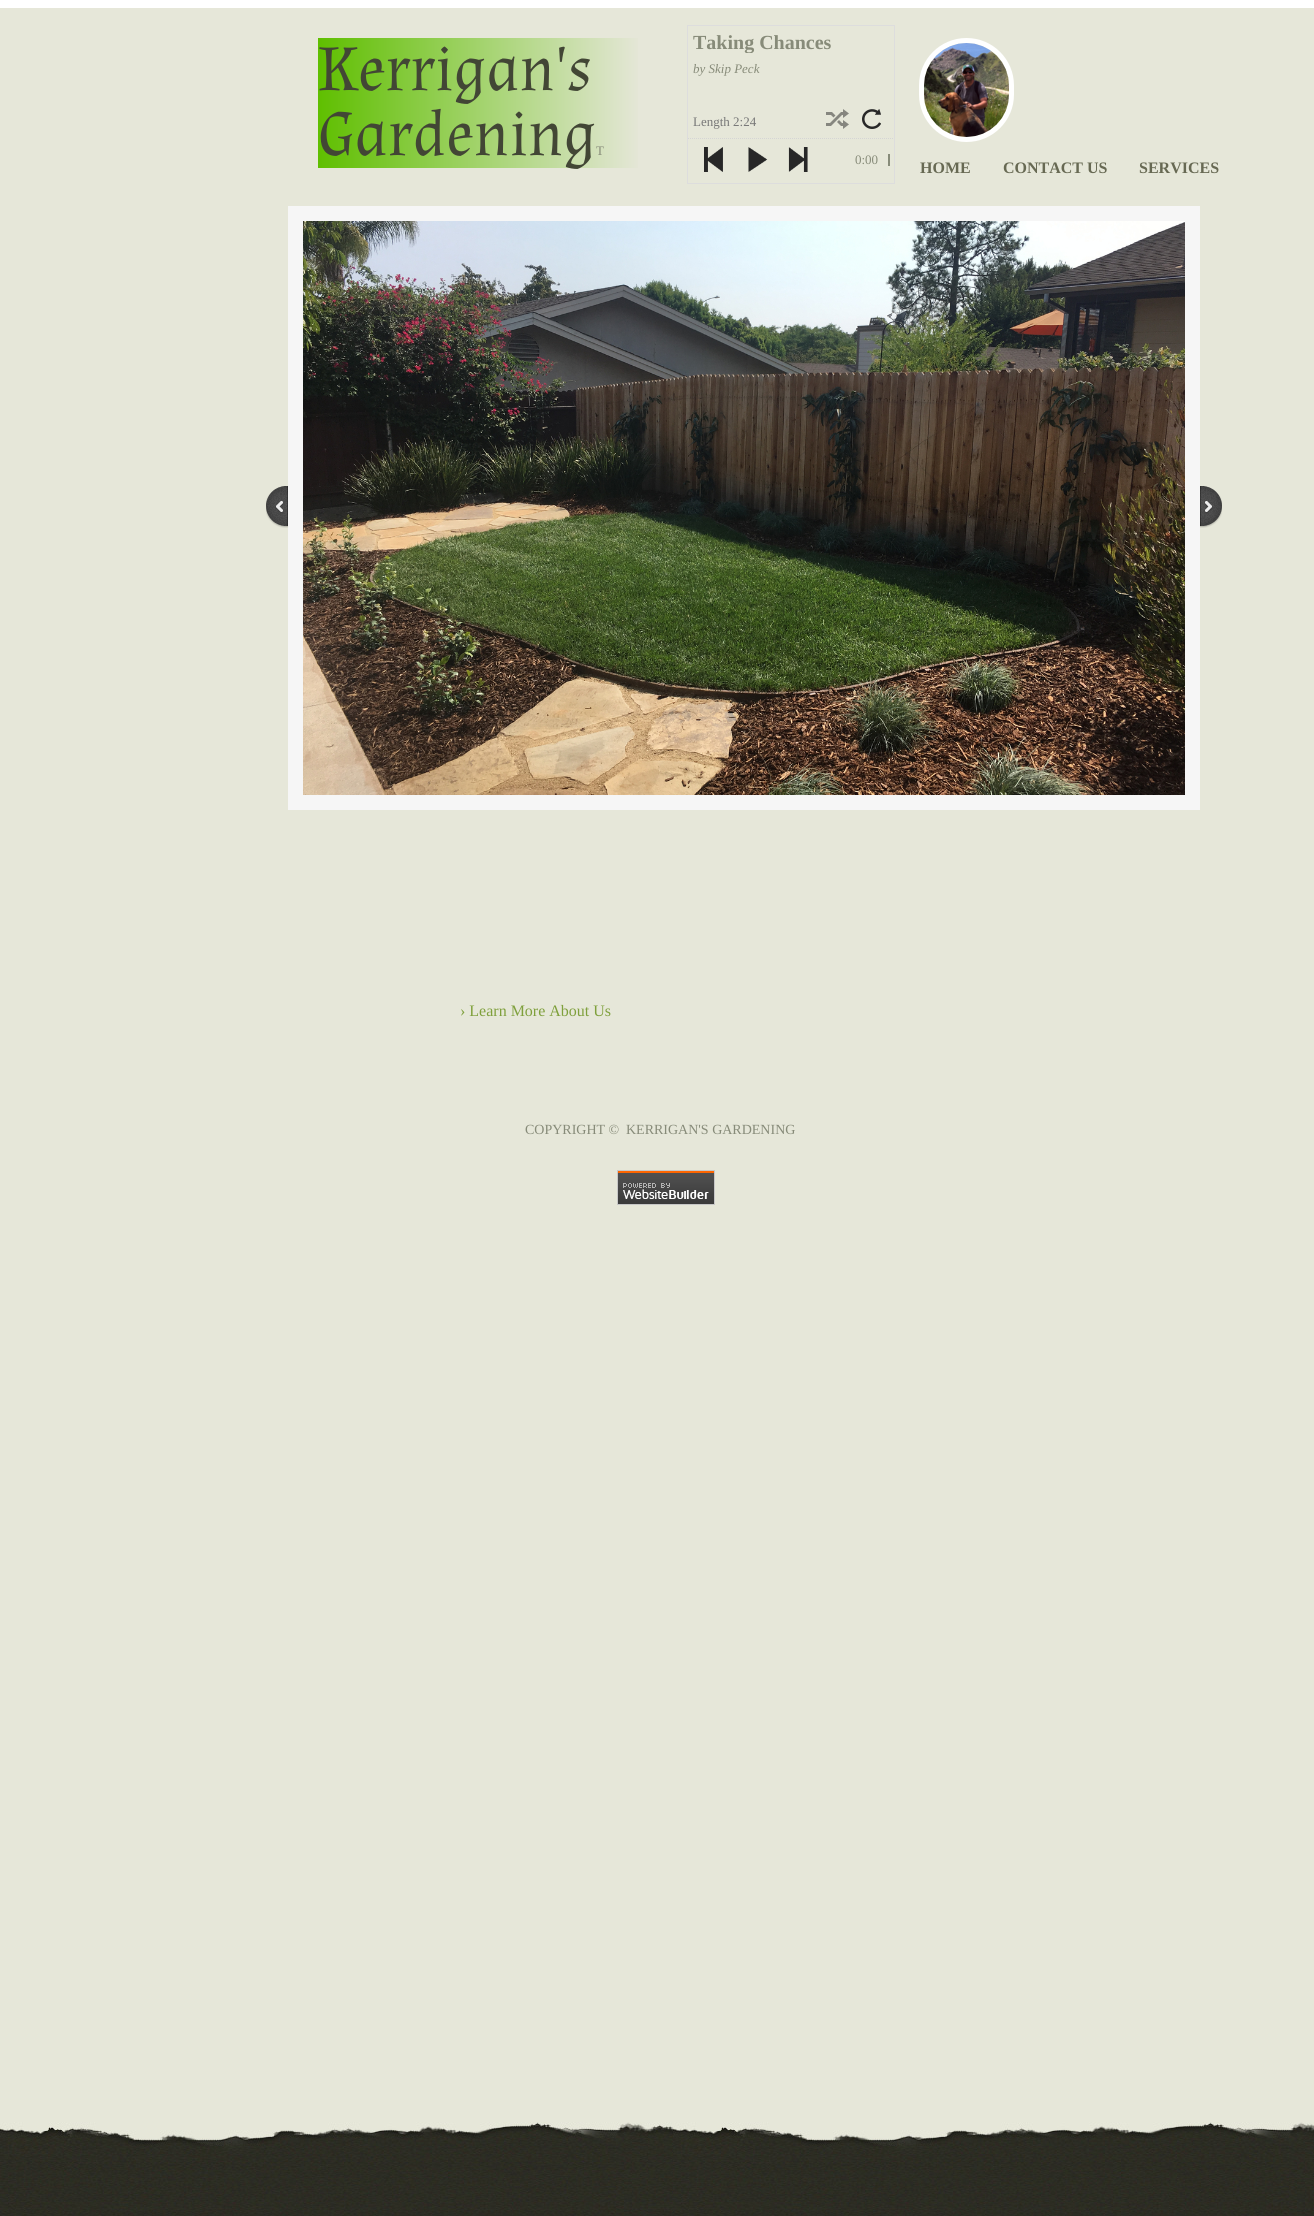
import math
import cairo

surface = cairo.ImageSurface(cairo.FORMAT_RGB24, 1314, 2216)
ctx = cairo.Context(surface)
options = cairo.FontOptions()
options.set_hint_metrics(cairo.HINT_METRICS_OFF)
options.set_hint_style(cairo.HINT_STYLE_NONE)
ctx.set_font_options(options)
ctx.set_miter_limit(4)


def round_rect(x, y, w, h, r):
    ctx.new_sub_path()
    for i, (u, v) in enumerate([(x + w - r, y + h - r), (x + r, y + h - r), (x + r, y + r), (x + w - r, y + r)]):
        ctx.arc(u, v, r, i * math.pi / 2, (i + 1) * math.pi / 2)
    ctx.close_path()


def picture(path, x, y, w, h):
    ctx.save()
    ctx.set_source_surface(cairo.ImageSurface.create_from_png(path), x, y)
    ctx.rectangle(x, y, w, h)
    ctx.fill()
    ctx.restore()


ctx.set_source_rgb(1, 1, 1)
ctx.paint()
ctx.set_source_rgb(0.902, 0.906, 0.851)
ctx.rectangle(0, 8, 1314, 2114)
ctx.fill()
picture("img1.png", 0, 2122, 1314, 94)
gradient = cairo.LinearGradient(318, 103, 642, 103)
gradient.add_color_stop_rgba(0, 0.373, 0.749, 0, 1)
gradient.add_color_stop_rgba(1, 0.902, 0.906, 0.851, 1)
ctx.set_source(gradient)
ctx.rectangle(318, 38, 320, 130)
ctx.fill()
ctx.select_font_face("Almendra")
ctx.set_font_size(65)
ctx.set_source_rgb(0.259, 0.275, 0.208)
ctx.move_to(318, 90)
ctx.show_text("Kerrigan's")
ctx.move_to(318, 155)
ctx.show_text("Gardening")
ctx.select_font_face("Liberation Serif")
ctx.set_font_size(13)
ctx.set_source_rgb(0.529, 0.545, 0.475)
ctx.move_to(596, 155)
ctx.show_text("T")
ctx.rectangle(687.5, 25.5, 207, 158)
ctx.set_source_rgb(0.867, 0.867, 0.867)
ctx.set_line_width(1)
ctx.stroke()
ctx.save()
ctx.rectangle(693, 32, 196, 21)
ctx.clip()
ctx.select_font_face("Liberation Serif", cairo.FONT_SLANT_NORMAL, cairo.FONT_WEIGHT_BOLD)
ctx.set_font_size(20)
ctx.set_source_rgb(0.529, 0.545, 0.475)
ctx.move_to(693, 49)
ctx.show_text("Taking Chances")
ctx.restore()
ctx.select_font_face("Liberation Serif", cairo.FONT_SLANT_ITALIC)
ctx.set_source_rgb(0.529, 0.545, 0.475)
ctx.move_to(693, 73)
ctx.show_text("by Skip Peck")
ctx.select_font_face("Liberation Serif")
ctx.set_source_rgb(0.467, 0.467, 0.467)
ctx.move_to(693, 126)
ctx.show_text("Length 2:24")
picture("img2.png", 826, 109, 23, 20)
picture("img3.png", 862, 109, 19, 20)
ctx.new_path()
ctx.move_to(688, 138.5)
ctx.line_to(894, 138.5)
ctx.set_source_rgb(0.835, 0.835, 0.835)
ctx.set_dash([1, 1])
ctx.stroke()
picture("img4.png", 704, 147, 19, 25)
picture("img5.png", 748, 147, 20, 25)
picture("img6.png", 788, 147, 20, 25)
ctx.set_source_rgb(0.529, 0.545, 0.475)
ctx.move_to(855, 164)
ctx.show_text("0:00")
ctx.rectangle(888, 154, 2, 12)
ctx.fill()
round_rect(921.5, 40.5, 90, 99, 45)
ctx.set_source_rgb(1, 1, 1)
ctx.set_line_width(5)
ctx.set_dash([])
ctx.stroke()
picture("img7.png", 924, 43, 85, 94)
ctx.select_font_face("Liberation Serif", cairo.FONT_SLANT_NORMAL, cairo.FONT_WEIGHT_BOLD)
ctx.set_font_size(16)
ctx.set_source_rgb(0.404, 0.412, 0.325)
ctx.move_to(920, 173)
ctx.show_text("HOME")
ctx.move_to(1003, 173)
ctx.show_text("CONTACT US")
ctx.move_to(1139, 173)
ctx.show_text("SERVICES")
picture("img8.png", 266, 486, 22, 42)
ctx.rectangle(295.5, 213.5, 897, 589)
ctx.set_source_rgb(0.961, 0.961, 0.961)
ctx.set_line_width(15)
ctx.stroke()
picture("img9.png", 303, 221, 882, 574)
picture("img10.png", 1200, 486, 22, 42)
ctx.select_font_face("Liberation Serif")
ctx.set_source_rgb(0.498, 0.627, 0.235)
ctx.move_to(460, 1016)
ctx.show_text("› Learn More About Us")
ctx.set_font_size(14)
ctx.set_source_rgb(0.529, 0.545, 0.475)
ctx.move_to(525, 1134)
ctx.show_text("COPYRIGHT ©")
ctx.move_to(626, 1134)
ctx.show_text("KERRIGAN'S GARDENING")
picture("img11.png", 617, 1170, 98, 35)
surface.write_to_png("page.png")
